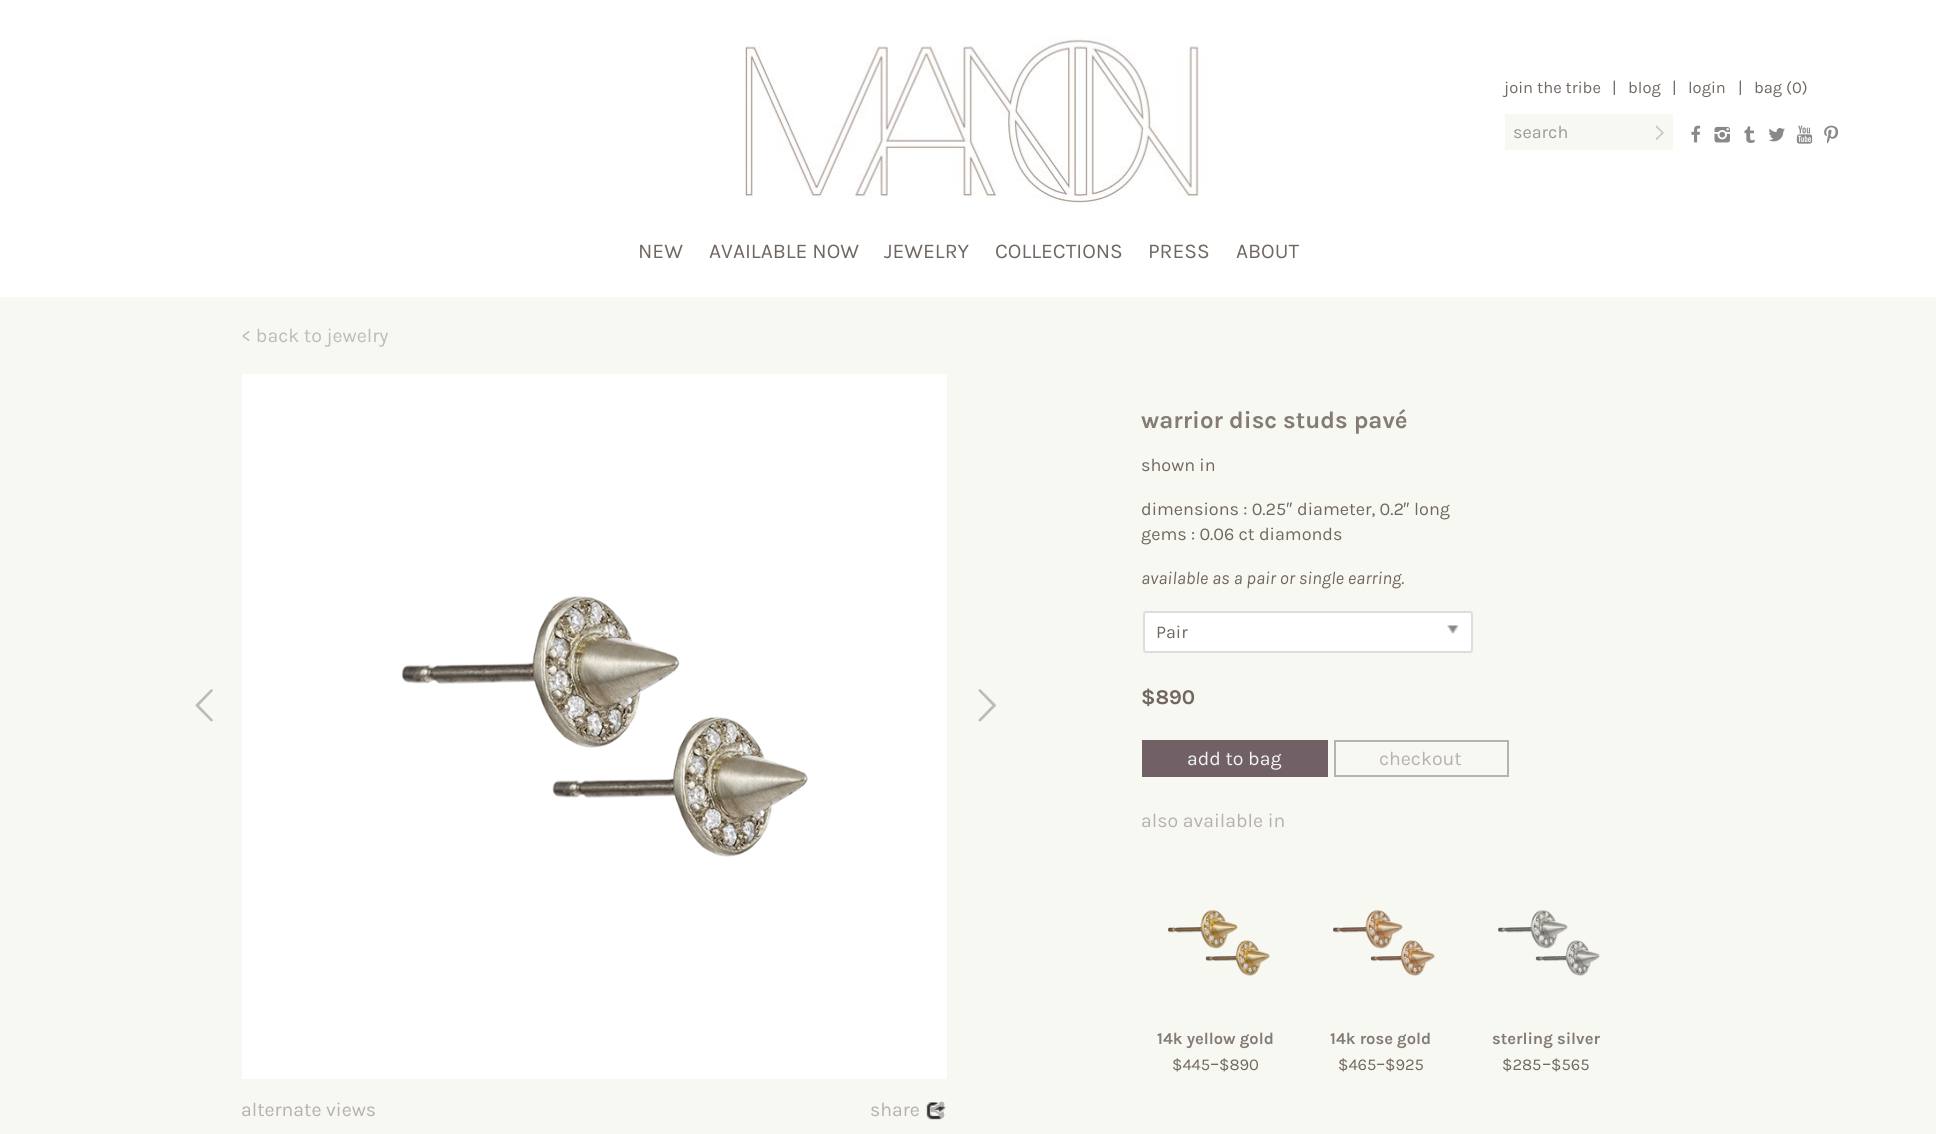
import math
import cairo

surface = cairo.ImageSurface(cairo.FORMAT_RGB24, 1936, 1134)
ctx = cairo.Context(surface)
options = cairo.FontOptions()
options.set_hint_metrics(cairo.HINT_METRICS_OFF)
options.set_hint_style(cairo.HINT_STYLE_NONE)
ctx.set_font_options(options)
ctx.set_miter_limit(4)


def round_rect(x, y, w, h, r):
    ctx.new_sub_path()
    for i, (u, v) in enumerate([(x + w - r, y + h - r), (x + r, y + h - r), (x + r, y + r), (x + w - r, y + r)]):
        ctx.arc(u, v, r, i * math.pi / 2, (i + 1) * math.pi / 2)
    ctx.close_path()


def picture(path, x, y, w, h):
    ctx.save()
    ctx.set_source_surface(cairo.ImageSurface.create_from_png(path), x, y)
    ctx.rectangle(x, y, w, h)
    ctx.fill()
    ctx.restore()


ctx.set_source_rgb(1, 1, 1)
ctx.paint()
picture("img1.png", 745, 37, 462, 169)
ctx.select_font_face("Karla")
ctx.set_font_size(16.5)
ctx.set_source_rgb(0.443, 0.404, 0.38)
ctx.move_to(1504, 93)
ctx.show_text("join the tribe")
ctx.move_to(1612, 93)
ctx.show_text("|")
ctx.move_to(1628, 93)
ctx.show_text("blog")
ctx.move_to(1672, 93)
ctx.show_text("|")
ctx.move_to(1688, 93)
ctx.show_text("login")
ctx.move_to(1738, 93)
ctx.show_text("|")
ctx.move_to(1754, 93)
ctx.show_text("bag (0)")
ctx.set_source_rgb(0.969, 0.969, 0.953)
ctx.rectangle(1505, 114, 168, 36)
ctx.fill()
picture("img2.png", 1656, 125, 8, 15)
ctx.set_font_size(18)
ctx.set_source_rgb(0.6, 0.6, 0.6)
ctx.move_to(1513, 138)
ctx.show_text("search")
picture("img3.png", 1691, 125, 10, 18)
picture("img4.png", 1714, 126, 16, 17)
picture("img5.png", 1744, 126, 11, 17)
picture("img6.png", 1768, 128, 17, 14)
picture("img7.png", 1796, 125, 17, 19)
picture("img8.png", 1824, 125, 15, 19)
ctx.set_font_size(21)
ctx.set_source_rgb(0.443, 0.404, 0.38)
ctx.move_to(638, 258)
ctx.show_text("NEW")
ctx.move_to(709, 258)
ctx.show_text("AVAILABLE NOW")
ctx.move_to(884, 258)
ctx.show_text("JEWELRY")
ctx.move_to(995, 258)
ctx.show_text("COLLECTIONS")
ctx.move_to(1148, 258)
ctx.show_text("PRESS")
ctx.move_to(1236, 258)
ctx.show_text("ABOUT")
ctx.set_source_rgb(0.969, 0.969, 0.953)
ctx.rectangle(0, 297, 1936, 837)
ctx.fill()
ctx.set_font_size(19.5)
ctx.set_source_rgb(0.741, 0.729, 0.718)
ctx.move_to(241, 342)
ctx.show_text("< back to jewelry")
ctx.select_font_face("Karla", cairo.FONT_SLANT_NORMAL, cairo.FONT_WEIGHT_BOLD)
ctx.set_font_size(24)
ctx.set_source_rgb(0.518, 0.482, 0.463)
ctx.move_to(1141, 428)
ctx.show_text("warrior disc studs pavé")
ctx.select_font_face("Karla")
ctx.set_font_size(18)
ctx.set_source_rgb(0.443, 0.404, 0.38)
ctx.move_to(1141, 471)
ctx.show_text("shown in")
ctx.move_to(1141, 515)
ctx.show_text("dimensions : 0.25")
ctx.select_font_face("Liberation Sans")
ctx.move_to(1286, 515)
ctx.show_text("″")
ctx.select_font_face("Karla")
ctx.move_to(1297, 515)
ctx.show_text("diameter, 0.2")
ctx.select_font_face("Liberation Sans")
ctx.move_to(1403, 515)
ctx.show_text("″")
ctx.select_font_face("Karla")
ctx.move_to(1414, 515)
ctx.show_text("long")
ctx.move_to(1141, 540)
ctx.show_text("gems : 0.06 ct diamonds")
ctx.select_font_face("Karla", cairo.FONT_SLANT_ITALIC)
ctx.move_to(1141, 584)
ctx.show_text("available as a pair or single earring.")
ctx.set_source_rgb(1, 1, 1)
round_rect(1144, 612, 328, 40, 2)
ctx.fill_preserve()
ctx.set_source_rgb(0.867, 0.867, 0.867)
ctx.stroke()
ctx.select_font_face("Karla")
ctx.set_source_rgb(0.443, 0.404, 0.38)
ctx.move_to(1156, 638)
ctx.show_text("Pair")
picture("img9.png", 1447, 625, 12, 9)
ctx.select_font_face("Karla", cairo.FONT_SLANT_NORMAL, cairo.FONT_WEIGHT_BOLD)
ctx.set_font_size(21)
ctx.move_to(1141, 704)
ctx.show_text("$890")
ctx.set_source_rgb(0.443, 0.38, 0.404)
ctx.rectangle(1142, 740, 186, 37)
ctx.fill()
ctx.select_font_face("Karla")
ctx.set_font_size(19.5)
ctx.set_source_rgb(0.957, 0.957, 0.957)
ctx.move_to(1187, 765)
ctx.show_text("add to bag")
ctx.rectangle(1335, 741, 173, 35)
ctx.set_source_rgb(0.702, 0.702, 0.69)
ctx.stroke()
ctx.set_source_rgb(0.718, 0.69, 0.686)
ctx.move_to(1379, 765)
ctx.show_text("checkout")
ctx.move_to(1141, 827)
ctx.show_text("also available in")
picture("img10.png", 1168, 910, 102, 66)
ctx.select_font_face("Karla", cairo.FONT_SLANT_NORMAL, cairo.FONT_WEIGHT_BOLD)
ctx.set_font_size(16.5)
ctx.set_source_rgb(0.518, 0.482, 0.463)
ctx.move_to(1157, 1044)
ctx.show_text("14k yellow gold")
ctx.select_font_face("Karla")
ctx.set_source_rgb(0.443, 0.404, 0.38)
ctx.move_to(1172, 1070)
ctx.show_text("$445")
ctx.set_font_size(19.5)
ctx.move_to(1210, 1070)
ctx.show_text("–")
ctx.set_font_size(16.5)
ctx.move_to(1219, 1070)
ctx.show_text("$890")
picture("img11.png", 1333, 910, 102, 66)
ctx.select_font_face("Karla", cairo.FONT_SLANT_NORMAL, cairo.FONT_WEIGHT_BOLD)
ctx.set_source_rgb(0.518, 0.482, 0.463)
ctx.move_to(1330, 1044)
ctx.show_text("14k rose gold")
ctx.select_font_face("Karla")
ctx.set_source_rgb(0.443, 0.404, 0.38)
ctx.move_to(1338, 1070)
ctx.show_text("$465")
ctx.set_font_size(19.5)
ctx.move_to(1376, 1070)
ctx.show_text("–")
ctx.set_font_size(16.5)
ctx.move_to(1385, 1070)
ctx.show_text("$925")
picture("img12.png", 1498, 910, 102, 66)
ctx.select_font_face("Karla", cairo.FONT_SLANT_NORMAL, cairo.FONT_WEIGHT_BOLD)
ctx.set_source_rgb(0.518, 0.482, 0.463)
ctx.move_to(1492, 1044)
ctx.show_text("sterling silver")
ctx.select_font_face("Karla")
ctx.set_source_rgb(0.443, 0.404, 0.38)
ctx.move_to(1502, 1070)
ctx.show_text("$285")
ctx.set_font_size(19.5)
ctx.move_to(1542, 1070)
ctx.show_text("–")
ctx.set_font_size(16.5)
ctx.move_to(1551, 1070)
ctx.show_text("$565")
ctx.set_source_rgb(1, 1, 1)
ctx.rectangle(242, 374, 705, 705)
ctx.fill()
picture("img13.png", 195, 689, 18, 33)
picture("img14.png", 401, 596, 407, 261)
picture("img15.png", 978, 689, 18, 33)
ctx.set_font_size(19.5)
ctx.set_source_rgb(0.718, 0.69, 0.686)
ctx.move_to(241, 1116)
ctx.show_text("alternate views")
ctx.move_to(870, 1116)
ctx.show_text("share")
picture("img16.png", 926, 1102, 20, 18)
picture("img17.png", 930, 1101, 15, 17)
surface.write_to_png("page.png")
